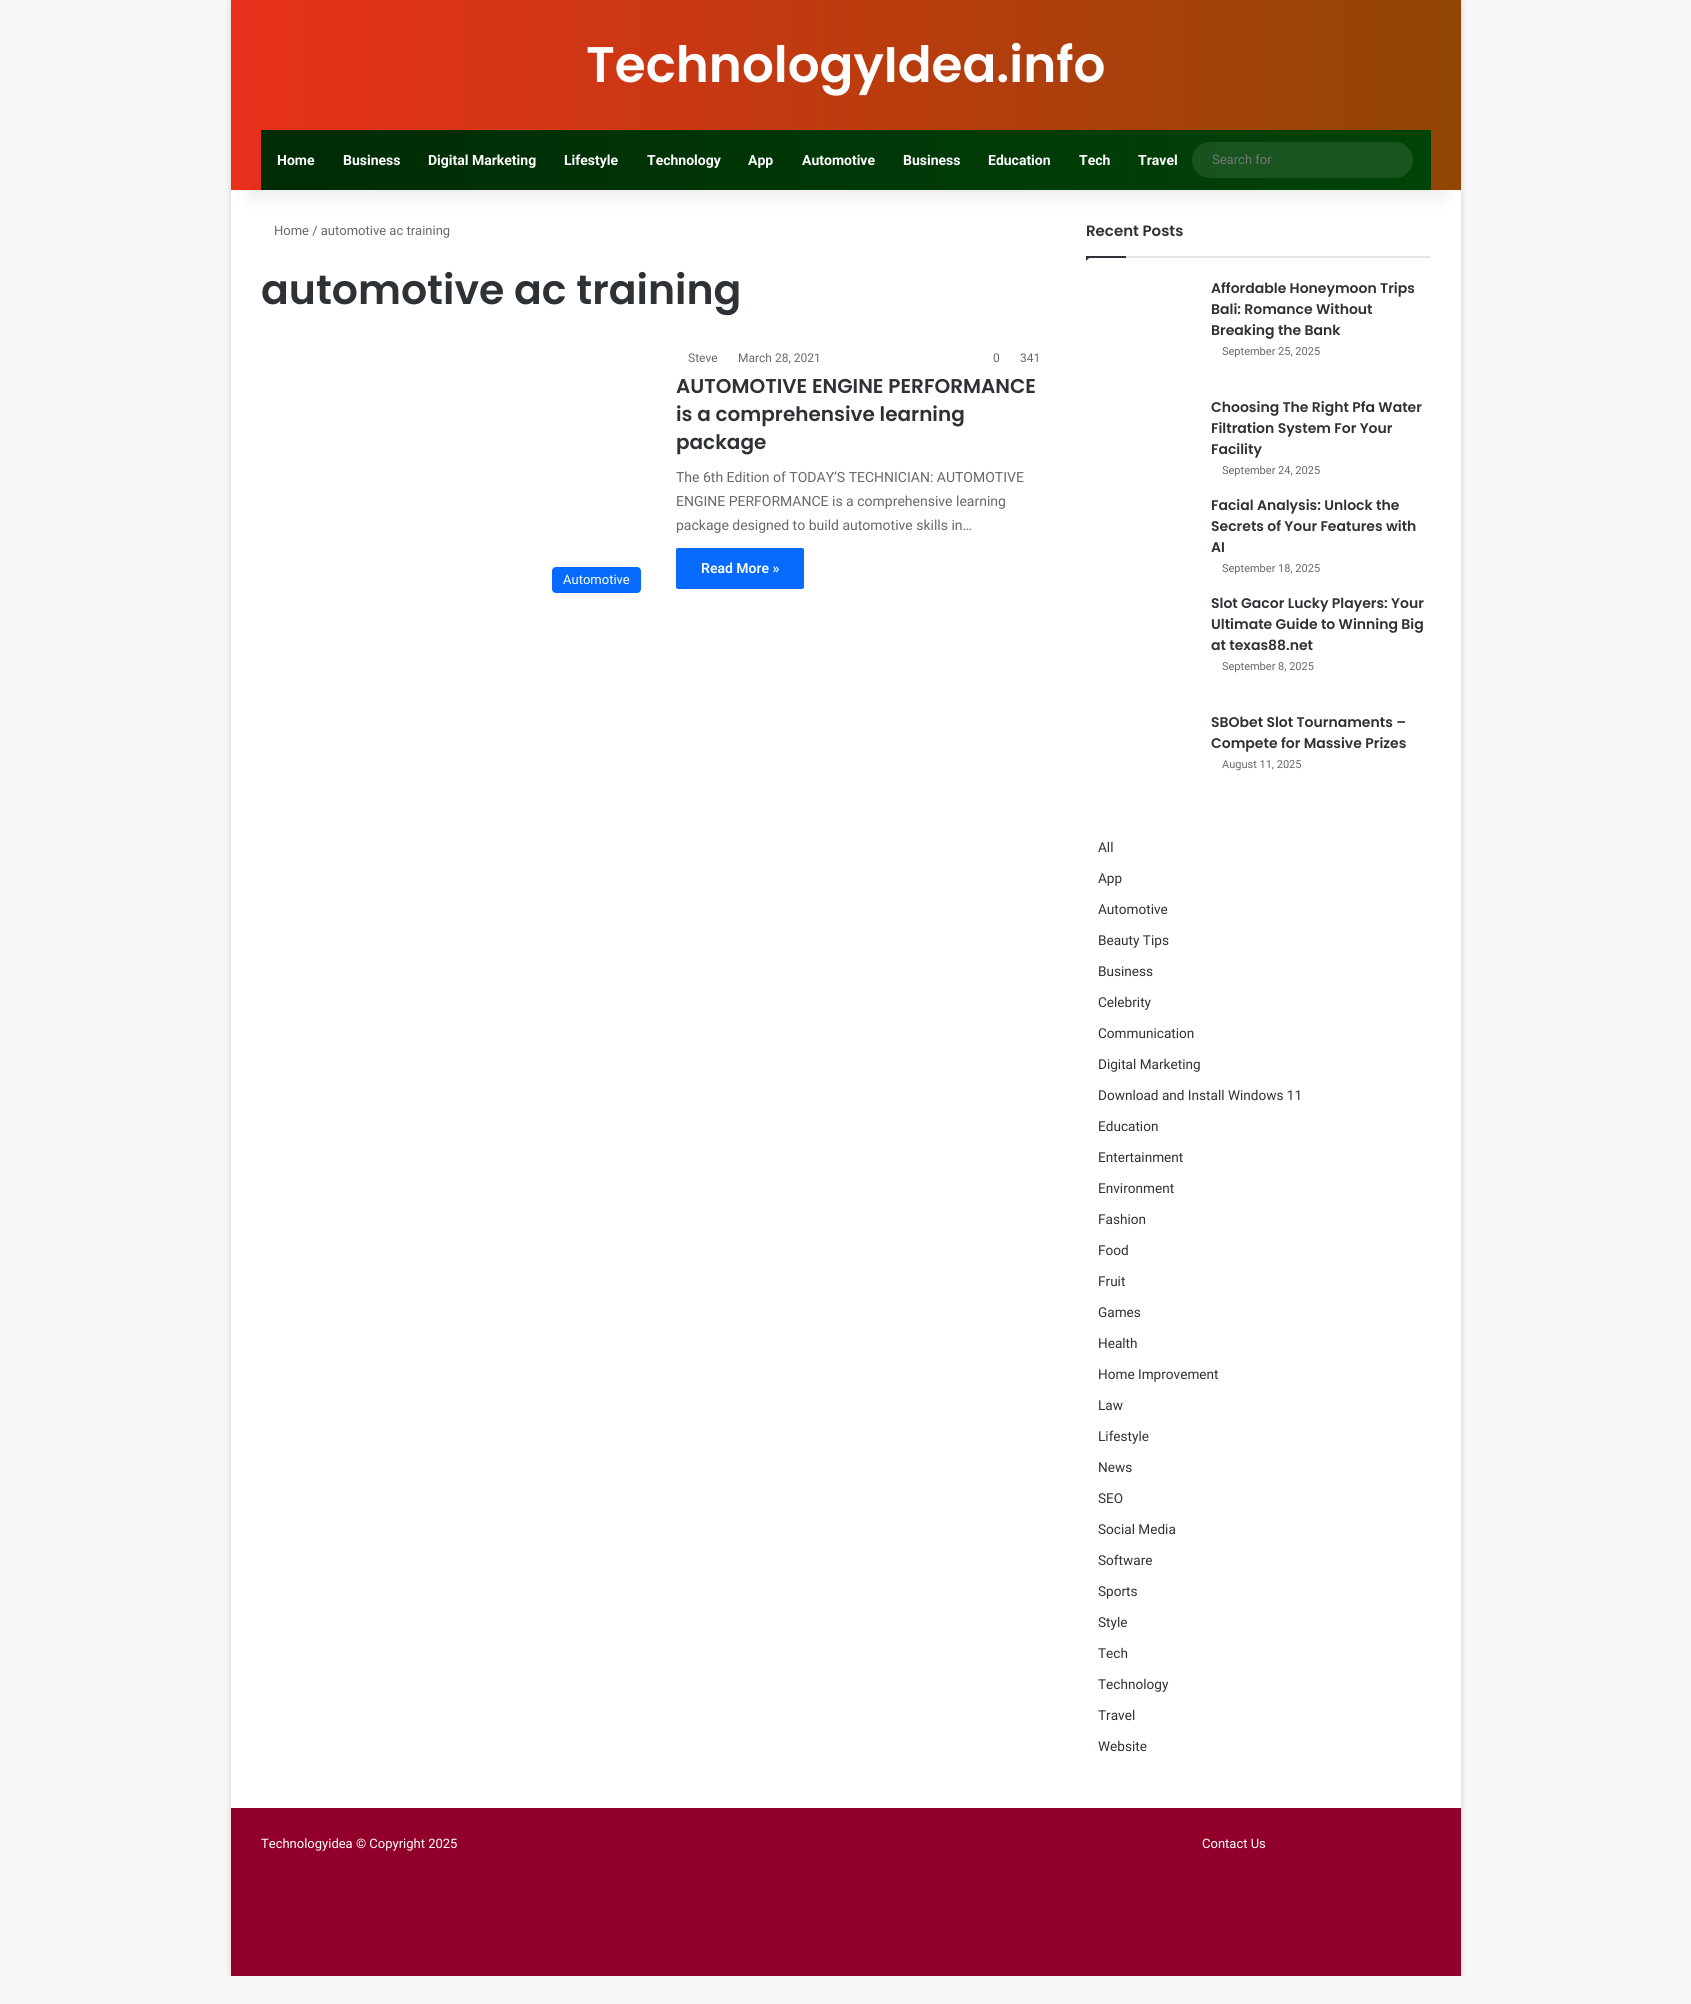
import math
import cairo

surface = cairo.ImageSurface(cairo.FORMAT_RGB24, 1691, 2004)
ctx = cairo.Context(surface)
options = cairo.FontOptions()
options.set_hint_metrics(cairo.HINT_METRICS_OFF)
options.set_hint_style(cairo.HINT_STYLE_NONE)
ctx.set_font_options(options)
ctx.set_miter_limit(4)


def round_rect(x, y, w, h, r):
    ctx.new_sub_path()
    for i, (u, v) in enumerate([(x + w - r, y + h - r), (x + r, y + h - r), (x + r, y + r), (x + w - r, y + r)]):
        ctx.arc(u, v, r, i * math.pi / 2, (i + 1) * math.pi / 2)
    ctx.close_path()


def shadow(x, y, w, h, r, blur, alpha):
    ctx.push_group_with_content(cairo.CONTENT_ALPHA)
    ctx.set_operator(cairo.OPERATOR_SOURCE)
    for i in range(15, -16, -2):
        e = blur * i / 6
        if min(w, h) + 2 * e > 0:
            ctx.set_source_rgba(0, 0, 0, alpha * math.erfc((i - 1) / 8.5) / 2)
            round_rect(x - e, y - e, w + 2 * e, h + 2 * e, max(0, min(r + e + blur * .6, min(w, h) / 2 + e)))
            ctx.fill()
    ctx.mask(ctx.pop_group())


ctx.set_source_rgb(0.969, 0.969, 0.969)
ctx.paint()
ctx.save()
ctx.rectangle(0, 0, 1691, 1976)
ctx.clip()
ctx.set_source_rgb(0.671, 0.671, 0.671)
shadow(231, 1, 1230, 1976, 0, 3.5, 0.5)
ctx.restore()
ctx.set_source_rgb(1, 1, 1)
ctx.rectangle(231, 190, 1230, 1618)
ctx.fill()
ctx.set_source_rgb(0, 0, 0)
shadow(251, 45, 1190, 150, 0, 10, 0.1)
gradient = cairo.LinearGradient(231, 95, 1461, 95)
gradient.add_color_stop_rgba(0, 0.91, 0.188, 0.106, 1)
gradient.add_color_stop_rgba(1, 0.569, 0.275, 0.016, 1)
ctx.set_source(gradient)
ctx.rectangle(231, 0, 1230, 190)
ctx.fill()
ctx.select_font_face("Poppins SemiBold")
ctx.set_font_size(50)
ctx.set_source_rgb(1, 1, 1)
ctx.move_to(586, 82)
ctx.show_text("TechnologyIdea.info")
gradient = cairo.LinearGradient(261, 160, 1431, 160)
gradient.add_color_stop_rgba(0, 0, 0.169, 0.02, 1)
gradient.add_color_stop_rgba(1, 0, 0.267, 0.031, 1)
ctx.set_source(gradient)
ctx.rectangle(261, 130, 1170, 60)
ctx.fill()
ctx.select_font_face("Roboto", cairo.FONT_SLANT_NORMAL, cairo.FONT_WEIGHT_BOLD)
ctx.set_font_size(14)
ctx.set_source_rgb(1, 1, 1)
ctx.move_to(277, 165)
ctx.show_text("Home")
ctx.move_to(343, 165)
ctx.show_text("Business")
ctx.move_to(428, 165)
ctx.show_text("Digital Marketing")
ctx.move_to(564, 165)
ctx.show_text("Lifestyle")
ctx.move_to(647, 165)
ctx.show_text("Technology")
ctx.move_to(748, 165)
ctx.show_text("App")
ctx.move_to(802, 165)
ctx.show_text("Automotive")
ctx.move_to(903, 165)
ctx.show_text("Business")
ctx.move_to(988, 165)
ctx.show_text("Education")
ctx.move_to(1079, 165)
ctx.show_text("Tech")
ctx.move_to(1138, 165)
ctx.show_text("Travel")
ctx.set_source_rgba(1, 1, 1, 0.1)
round_rect(1192, 142, 221, 36, 18)
ctx.fill()
ctx.select_font_face("Roboto")
ctx.set_font_size(13)
ctx.set_source_rgb(0.459, 0.459, 0.459)
ctx.move_to(1212, 164)
ctx.show_text("Search for")
ctx.set_source_rgb(0.408, 0.408, 0.408)
ctx.move_to(274, 235)
ctx.show_text("Home / automotive ac training")
ctx.select_font_face("Poppins SemiBold")
ctx.set_font_size(41)
ctx.set_source_rgb(0.18, 0.192, 0.212)
ctx.move_to(261, 304)
ctx.show_text("automotive ac training")
ctx.select_font_face("Roboto")
ctx.set_font_size(12)
ctx.set_source_rgb(0.408, 0.408, 0.408)
ctx.move_to(688, 362)
ctx.show_text("Steve")
ctx.move_to(738, 362)
ctx.show_text("March 28, 2021")
ctx.move_to(993, 362)
ctx.show_text("0")
ctx.move_to(1020, 362)
ctx.show_text("341")
ctx.select_font_face("Poppins SemiBold")
ctx.set_font_size(20)
ctx.set_source_rgb(0.18, 0.192, 0.212)
ctx.move_to(676, 393)
ctx.show_text("AUTOMOTIVE ENGINE PERFORMANCE")
ctx.move_to(676, 421)
ctx.show_text("is a comprehensive learning")
ctx.move_to(676, 449)
ctx.show_text("package")
ctx.select_font_face("Roboto")
ctx.set_font_size(14)
ctx.set_source_rgb(0.408, 0.408, 0.408)
ctx.move_to(676, 482)
ctx.show_text("The 6th Edition of TODAY’S TECHNICIAN: AUTOMOTIVE")
ctx.move_to(676, 506)
ctx.show_text("ENGINE PERFORMANCE is a comprehensive learning")
ctx.move_to(676, 530)
ctx.show_text("package designed to build automotive skills in…")
ctx.set_source_rgb(0.031, 0.42, 1)
round_rect(676, 548, 128, 41, 2)
ctx.fill()
ctx.select_font_face("Roboto SemiBold")
ctx.set_source_rgb(1, 1, 1)
ctx.move_to(701, 573)
ctx.show_text("Read More »")
ctx.set_source_rgb(0.031, 0.42, 1)
round_rect(552, 567, 89, 26, 4)
ctx.fill()
ctx.select_font_face("Roboto")
ctx.set_font_size(13)
ctx.set_source_rgb(1, 1, 1)
ctx.move_to(563, 584)
ctx.show_text("Automotive")
ctx.set_source_rgb(0.902, 0.902, 0.902)
ctx.rectangle(1126, 256, 305, 2)
ctx.fill()
ctx.select_font_face("Poppins SemiBold")
ctx.set_font_size(15)
ctx.set_source_rgb(0.18, 0.192, 0.212)
ctx.move_to(1086, 236)
ctx.show_text("Recent Posts")
ctx.new_path()
ctx.move_to(1086, 256)
ctx.line_to(1091, 256)
ctx.line_to(1086, 261)
ctx.close_path()
ctx.fill()
ctx.rectangle(1086, 256, 40, 2)
ctx.fill()
ctx.set_font_size(14)
ctx.move_to(1211, 293)
ctx.show_text("Affordable Honeymoon Trips")
ctx.move_to(1211, 314)
ctx.show_text("Bali: Romance Without")
ctx.move_to(1211, 335)
ctx.show_text("Breaking the Bank")
ctx.select_font_face("Roboto")
ctx.set_font_size(11)
ctx.set_source_rgb(0.408, 0.408, 0.408)
ctx.move_to(1222, 355)
ctx.show_text("September 25, 2025")
ctx.select_font_face("Poppins SemiBold")
ctx.set_font_size(14)
ctx.set_source_rgb(0.18, 0.192, 0.212)
ctx.move_to(1211, 412)
ctx.show_text("Choosing The Right Pfa Water")
ctx.move_to(1211, 433)
ctx.show_text("Filtration System For Your")
ctx.move_to(1211, 454)
ctx.show_text("Facility")
ctx.select_font_face("Roboto")
ctx.set_font_size(11)
ctx.set_source_rgb(0.408, 0.408, 0.408)
ctx.move_to(1222, 474)
ctx.show_text("September 24, 2025")
ctx.select_font_face("Poppins SemiBold")
ctx.set_font_size(14)
ctx.set_source_rgb(0.18, 0.192, 0.212)
ctx.move_to(1211, 510)
ctx.show_text("Facial Analysis: Unlock the")
ctx.move_to(1211, 531)
ctx.show_text("Secrets of Your Features with")
ctx.move_to(1211, 552)
ctx.show_text("AI")
ctx.select_font_face("Roboto")
ctx.set_font_size(11)
ctx.set_source_rgb(0.408, 0.408, 0.408)
ctx.move_to(1222, 572)
ctx.show_text("September 18, 2025")
ctx.select_font_face("Poppins SemiBold")
ctx.set_font_size(14)
ctx.set_source_rgb(0.18, 0.192, 0.212)
ctx.move_to(1211, 608)
ctx.show_text("Slot Gacor Lucky Players: Your")
ctx.move_to(1211, 629)
ctx.show_text("Ultimate Guide to Winning Big")
ctx.move_to(1211, 650)
ctx.show_text("at texas88.net")
ctx.select_font_face("Roboto")
ctx.set_font_size(11)
ctx.set_source_rgb(0.408, 0.408, 0.408)
ctx.move_to(1222, 670)
ctx.show_text("September 8, 2025")
ctx.select_font_face("Poppins SemiBold")
ctx.set_font_size(14)
ctx.set_source_rgb(0.18, 0.192, 0.212)
ctx.move_to(1211, 727)
ctx.show_text("SBObet Slot Tournaments –")
ctx.move_to(1211, 748)
ctx.show_text("Compete for Massive Prizes")
ctx.select_font_face("Roboto")
ctx.set_font_size(11)
ctx.set_source_rgb(0.408, 0.408, 0.408)
ctx.move_to(1222, 768)
ctx.show_text("August 11, 2025")
ctx.set_font_size(13.6)
ctx.set_source_rgb(0.18, 0.192, 0.212)
ctx.move_to(1098, 852)
ctx.show_text("All")
ctx.move_to(1098, 883)
ctx.show_text("App")
ctx.move_to(1098, 914)
ctx.show_text("Automotive")
ctx.move_to(1098, 945)
ctx.show_text("Beauty Tips")
ctx.move_to(1098, 976)
ctx.show_text("Business")
ctx.move_to(1098, 1007)
ctx.show_text("Celebrity")
ctx.move_to(1098, 1038)
ctx.show_text("Communication")
ctx.move_to(1098, 1069)
ctx.show_text("Digital Marketing")
ctx.move_to(1098, 1100)
ctx.show_text("Download and Install Windows 11")
ctx.move_to(1098, 1131)
ctx.show_text("Education")
ctx.move_to(1098, 1162)
ctx.show_text("Entertainment")
ctx.move_to(1098, 1193)
ctx.show_text("Environment")
ctx.move_to(1098, 1224)
ctx.show_text("Fashion")
ctx.move_to(1098, 1255)
ctx.show_text("Food")
ctx.move_to(1098, 1286)
ctx.show_text("Fruit")
ctx.move_to(1098, 1317)
ctx.show_text("Games")
ctx.move_to(1098, 1348)
ctx.show_text("Health")
ctx.move_to(1098, 1379)
ctx.show_text("Home Improvement")
ctx.move_to(1098, 1410)
ctx.show_text("Law")
ctx.move_to(1098, 1441)
ctx.show_text("Lifestyle")
ctx.move_to(1098, 1472)
ctx.show_text("News")
ctx.move_to(1098, 1503)
ctx.show_text("SEO")
ctx.move_to(1098, 1534)
ctx.show_text("Social Media")
ctx.move_to(1098, 1565)
ctx.show_text("Software")
ctx.move_to(1098, 1596)
ctx.show_text("Sports")
ctx.move_to(1098, 1627)
ctx.show_text("Style")
ctx.move_to(1098, 1658)
ctx.show_text("Tech")
ctx.move_to(1098, 1689)
ctx.show_text("Technology")
ctx.move_to(1098, 1720)
ctx.show_text("Travel")
ctx.move_to(1098, 1751)
ctx.show_text("Website")
ctx.set_source_rgb(0.569, 0, 0.169)
ctx.rectangle(231, 1808, 1230, 168)
ctx.fill()
ctx.set_font_size(13)
ctx.set_source_rgb(1, 1, 1)
ctx.move_to(261, 1848)
ctx.show_text("Technologyidea © Copyright 2025")
ctx.move_to(1202, 1848)
ctx.show_text("Contact Us")
surface.write_to_png("page.png")
